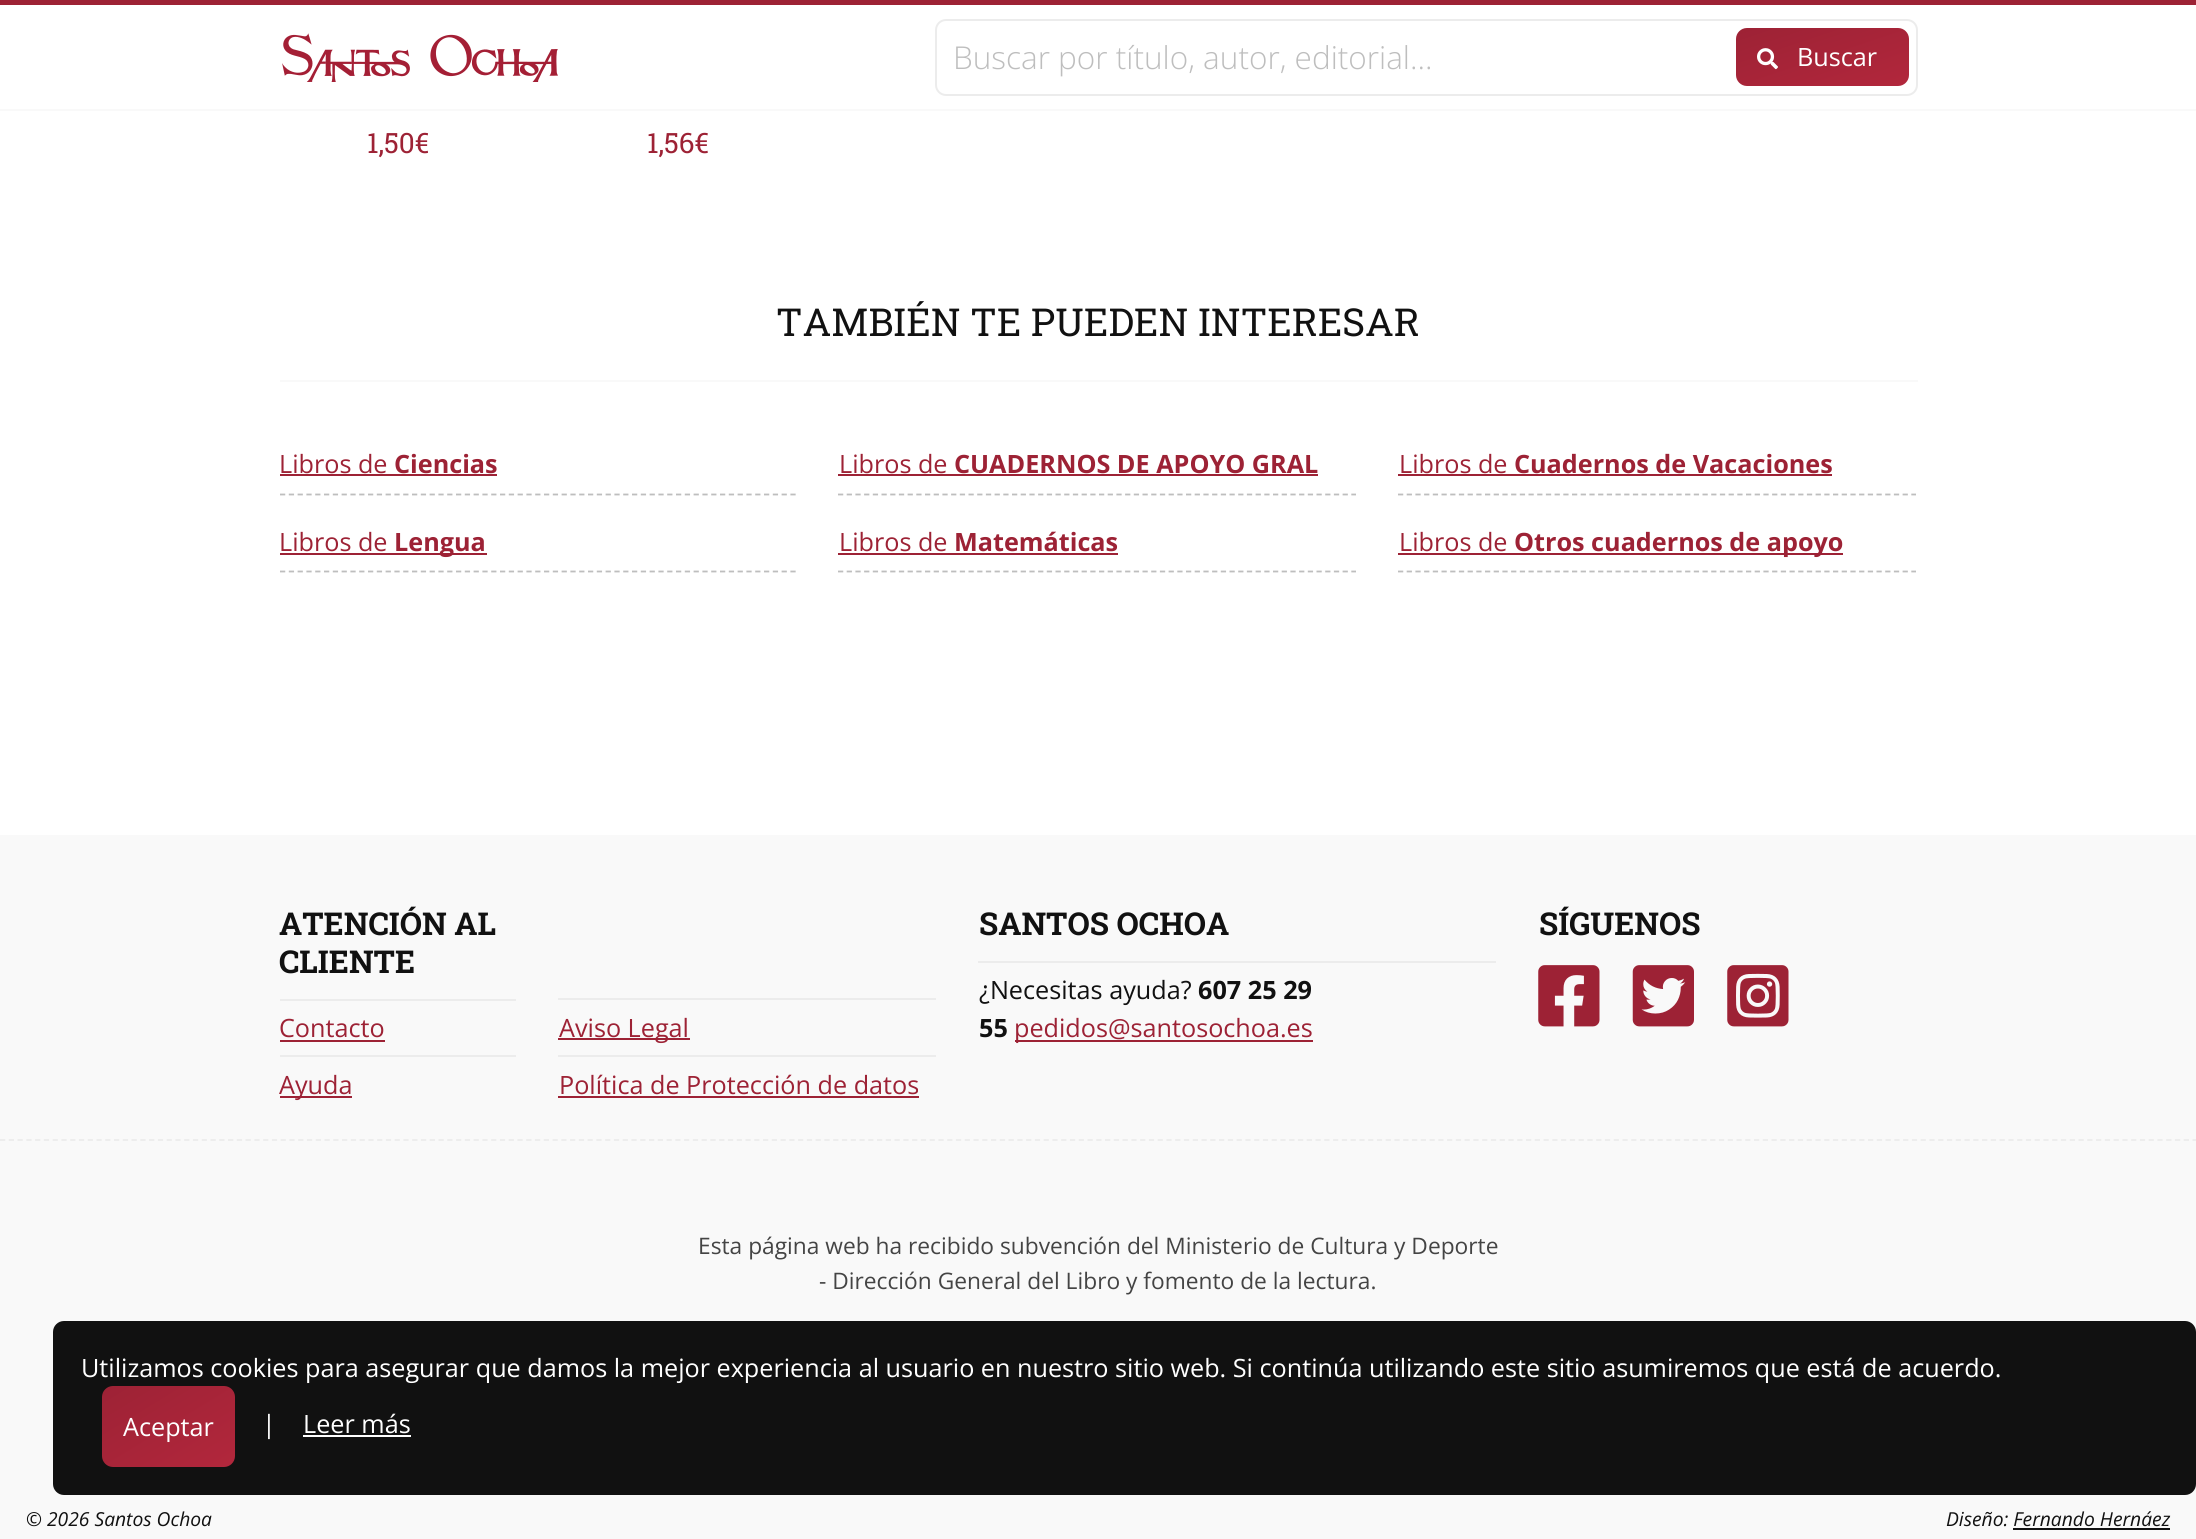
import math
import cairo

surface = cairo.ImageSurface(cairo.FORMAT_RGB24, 2196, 1539)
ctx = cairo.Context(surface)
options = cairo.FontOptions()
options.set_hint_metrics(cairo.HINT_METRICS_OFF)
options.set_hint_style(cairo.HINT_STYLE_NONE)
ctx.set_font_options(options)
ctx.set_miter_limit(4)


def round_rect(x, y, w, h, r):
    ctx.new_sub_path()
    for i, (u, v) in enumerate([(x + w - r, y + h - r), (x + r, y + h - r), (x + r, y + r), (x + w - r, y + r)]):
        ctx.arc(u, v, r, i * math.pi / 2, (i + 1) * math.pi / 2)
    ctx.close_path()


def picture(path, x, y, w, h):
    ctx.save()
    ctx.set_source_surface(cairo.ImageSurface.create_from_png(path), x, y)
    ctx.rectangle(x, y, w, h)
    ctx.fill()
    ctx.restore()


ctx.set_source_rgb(1, 1, 1)
ctx.paint()
ctx.set_source_rgb(0.616, 0.133, 0.208)
ctx.rectangle(0, 0, 2196, 5)
ctx.fill()
ctx.set_source_rgb(0.973, 0.973, 0.973)
ctx.rectangle(0, 109, 2196, 2)
ctx.fill()
picture("img1.png", 282, 33, 276, 49)
round_rect(936, 20, 981, 75, 10)
ctx.set_source_rgb(0.925, 0.925, 0.925)
ctx.stroke()
ctx.select_font_face("Open Sans Light")
ctx.set_font_size(31.5)
ctx.set_source_rgb(0.745, 0.745, 0.745)
ctx.move_to(953, 69)
ctx.show_text("Buscar por título, autor, editorial...")
gradient = cairo.LinearGradient(1805, 4.9, 1840, 109)
gradient.add_color_stop_rgba(0, 0.616, 0.133, 0.208, 1)
gradient.add_color_stop_rgba(1, 0.698, 0.153, 0.235, 1)
ctx.set_source(gradient)
round_rect(1736, 28, 173, 58, 11)
ctx.fill()
picture("img2.png", 1757, 48, 21, 22)
ctx.select_font_face("Open Sans")
ctx.set_font_size(25.2)
ctx.set_source_rgb(1, 1, 1)
ctx.move_to(1797, 66)
ctx.show_text("Buscar")
ctx.select_font_face("Roboto Slab")
ctx.set_font_size(28)
ctx.set_source_rgb(0.616, 0.133, 0.208)
ctx.move_to(367, 153)
ctx.show_text("1,50€")
ctx.move_to(647, 153)
ctx.show_text("1,56€")
ctx.set_source_rgb(0.973, 0.973, 0.973)
ctx.rectangle(280, 380, 1638, 2)
ctx.fill()
ctx.set_font_size(38.5)
ctx.set_source_rgb(0.067, 0.067, 0.067)
ctx.move_to(776, 336)
ctx.show_text("TAMBIÉN TE PUEDEN INTERESAR")
ctx.new_path()
ctx.move_to(280, 494.5)
ctx.line_to(796, 494.5)
ctx.set_source_rgb(0.745, 0.745, 0.745)
ctx.set_line_width(1.8)
ctx.set_dash([5.25, 3.55])
ctx.stroke()
ctx.select_font_face("Open Sans")
ctx.set_font_size(25.2)
ctx.set_source_rgb(0.616, 0.133, 0.208)
ctx.move_to(279, 473)
ctx.show_text("Libros de")
ctx.rectangle(280, 474, 217, 2)
ctx.fill()
ctx.select_font_face("Open Sans", cairo.FONT_SLANT_NORMAL, cairo.FONT_WEIGHT_BOLD)
ctx.move_to(394, 473)
ctx.show_text("Ciencias")
ctx.new_path()
ctx.move_to(838, 494.5)
ctx.line_to(1356, 494.5)
ctx.set_source_rgb(0.745, 0.745, 0.745)
ctx.set_dash([5.25, 3.45])
ctx.stroke()
ctx.select_font_face("Open Sans")
ctx.set_source_rgb(0.616, 0.133, 0.208)
ctx.move_to(839, 473)
ctx.show_text("Libros de")
ctx.rectangle(838, 474, 480, 2)
ctx.fill()
ctx.select_font_face("Open Sans", cairo.FONT_SLANT_NORMAL, cairo.FONT_WEIGHT_BOLD)
ctx.move_to(954, 473)
ctx.show_text("CUADERNOS DE APOYO GRAL")
ctx.new_path()
ctx.move_to(1398, 494.5)
ctx.line_to(1916, 494.5)
ctx.set_source_rgb(0.745, 0.745, 0.745)
ctx.stroke()
ctx.select_font_face("Open Sans")
ctx.set_source_rgb(0.616, 0.133, 0.208)
ctx.move_to(1399, 473)
ctx.show_text("Libros de")
ctx.rectangle(1398, 474, 434, 2)
ctx.fill()
ctx.select_font_face("Open Sans", cairo.FONT_SLANT_NORMAL, cairo.FONT_WEIGHT_BOLD)
ctx.move_to(1514, 473)
ctx.show_text("Cuadernos de Vacaciones")
ctx.new_path()
ctx.move_to(280, 571.5)
ctx.line_to(796, 571.5)
ctx.set_source_rgb(0.745, 0.745, 0.745)
ctx.set_dash([5.25, 3.55])
ctx.stroke()
ctx.select_font_face("Open Sans")
ctx.set_source_rgb(0.616, 0.133, 0.208)
ctx.move_to(279, 551)
ctx.show_text("Libros de")
ctx.rectangle(280, 553, 207, 2)
ctx.fill()
ctx.select_font_face("Open Sans", cairo.FONT_SLANT_NORMAL, cairo.FONT_WEIGHT_BOLD)
ctx.move_to(394, 551)
ctx.show_text("Lengua")
ctx.new_path()
ctx.move_to(838, 571.5)
ctx.line_to(1356, 571.5)
ctx.set_source_rgb(0.745, 0.745, 0.745)
ctx.set_dash([5.25, 3.45])
ctx.stroke()
ctx.select_font_face("Open Sans")
ctx.set_source_rgb(0.616, 0.133, 0.208)
ctx.move_to(839, 551)
ctx.show_text("Libros de")
ctx.rectangle(838, 553, 280, 2)
ctx.fill()
ctx.select_font_face("Open Sans", cairo.FONT_SLANT_NORMAL, cairo.FONT_WEIGHT_BOLD)
ctx.move_to(954, 551)
ctx.show_text("Matemáticas")
ctx.new_path()
ctx.move_to(1398, 571.5)
ctx.line_to(1916, 571.5)
ctx.set_source_rgb(0.745, 0.745, 0.745)
ctx.stroke()
ctx.select_font_face("Open Sans")
ctx.set_source_rgb(0.616, 0.133, 0.208)
ctx.move_to(1399, 551)
ctx.show_text("Libros de")
ctx.rectangle(1398, 553, 445, 2)
ctx.fill()
ctx.select_font_face("Open Sans", cairo.FONT_SLANT_NORMAL, cairo.FONT_WEIGHT_BOLD)
ctx.move_to(1514, 551)
ctx.show_text("Otros cuadernos de apoyo")
ctx.set_source_rgb(0.973, 0.973, 0.973)
ctx.rectangle(0, 835, 2196, 704)
ctx.fill()
ctx.select_font_face("Roboto Slab", cairo.FONT_SLANT_NORMAL, cairo.FONT_WEIGHT_BOLD)
ctx.set_font_size(31.5)
ctx.set_source_rgb(0.067, 0.067, 0.067)
ctx.move_to(279, 935)
ctx.show_text("ATENCIÓN AL")
ctx.move_to(279, 973)
ctx.show_text("CLIENTE")
ctx.set_source_rgb(0.925, 0.925, 0.925)
ctx.rectangle(280, 999, 236, 2)
ctx.fill()
ctx.select_font_face("Open Sans")
ctx.set_font_size(25.2)
ctx.set_source_rgb(0.616, 0.133, 0.208)
ctx.move_to(279, 1037)
ctx.show_text("Contacto")
ctx.rectangle(280, 1040, 105, 2)
ctx.fill()
ctx.set_source_rgb(0.925, 0.925, 0.925)
ctx.rectangle(280, 1055, 236, 2)
ctx.fill()
ctx.set_source_rgb(0.616, 0.133, 0.208)
ctx.rectangle(280, 1096, 72, 2)
ctx.fill()
ctx.move_to(279, 1094)
ctx.show_text("Ayuda")
ctx.select_font_face("Roboto Slab", cairo.FONT_SLANT_NORMAL, cairo.FONT_WEIGHT_BOLD)
ctx.set_font_size(31.5)
ctx.set_source_rgb(0.067, 0.067, 0.067)
ctx.move_to(979, 935)
ctx.show_text("SANTOS OCHOA")
ctx.set_source_rgb(0.925, 0.925, 0.925)
ctx.rectangle(978, 961, 518, 2)
ctx.fill()
ctx.select_font_face("Open Sans")
ctx.set_font_size(25.2)
ctx.set_source_rgb(0.067, 0.067, 0.067)
ctx.move_to(979, 999)
ctx.show_text("¿Necesitas ayuda?")
ctx.select_font_face("Open Sans", cairo.FONT_SLANT_NORMAL, cairo.FONT_WEIGHT_BOLD)
ctx.move_to(1198, 999)
ctx.show_text("607 25 29")
ctx.move_to(979, 1037)
ctx.show_text("55")
ctx.set_source_rgb(0.616, 0.133, 0.208)
ctx.rectangle(1015, 1040, 298, 2)
ctx.fill()
ctx.select_font_face("Open Sans")
ctx.move_to(1014, 1037)
ctx.show_text("pedidos@santosochoa.es")
ctx.select_font_face("Roboto Slab", cairo.FONT_SLANT_NORMAL, cairo.FONT_WEIGHT_BOLD)
ctx.set_font_size(31.5)
ctx.set_source_rgb(0.067, 0.067, 0.067)
ctx.move_to(1539, 935)
ctx.show_text("SÍGUENOS")
picture("img3.png", 1538, 965, 62, 62)
picture("img4.png", 1632, 965, 62, 62)
picture("img5.png", 1727, 965, 62, 62)
ctx.set_source_rgb(0.925, 0.925, 0.925)
ctx.rectangle(558, 998, 378, 2)
ctx.fill()
ctx.set_source_rgb(0.616, 0.133, 0.208)
ctx.rectangle(558, 1038, 132, 2)
ctx.fill()
ctx.select_font_face("Open Sans")
ctx.set_font_size(25.2)
ctx.move_to(559, 1037)
ctx.show_text("Aviso Legal")
ctx.set_source_rgb(0.925, 0.925, 0.925)
ctx.rectangle(558, 1055, 378, 2)
ctx.fill()
ctx.set_source_rgb(0.616, 0.133, 0.208)
ctx.move_to(559, 1094)
ctx.show_text("Política de Protección de datos")
ctx.rectangle(558, 1096, 361, 2)
ctx.fill()
ctx.new_path()
ctx.move_to(0, 1140)
ctx.line_to(2196, 1140)
ctx.set_source_rgb(0.925, 0.925, 0.925)
ctx.set_dash([5.25, 3.52])
ctx.stroke()
ctx.set_font_size(22.75)
ctx.set_source_rgb(0.267, 0.267, 0.267)
ctx.move_to(698, 1254)
ctx.show_text("Esta página web ha recibido subvención del Ministerio de Cultura y Deporte")
ctx.move_to(819, 1289)
ctx.show_text("- Dirección General del Libro y fomento de la lectura.")
ctx.select_font_face("Open Sans", cairo.FONT_SLANT_ITALIC)
ctx.set_font_size(19.25)
ctx.set_source_rgb(0.067, 0.067, 0.067)
ctx.move_to(26, 1526)
ctx.show_text("© 2026 Santos Ochoa")
ctx.move_to(1946, 1526)
ctx.show_text("Diseño: Fernando Hernáez")
ctx.rectangle(2013, 1528, 157, 2)
ctx.fill()
round_rect(53, 1321, 2143, 174, 11)
ctx.fill()
ctx.select_font_face("Open Sans")
ctx.set_font_size(25.2)
ctx.set_source_rgb(1, 1, 1)
ctx.move_to(81, 1377)
ctx.show_text("Utilizamos cookies para asegurar que damos la mejor experiencia al usuario en nuestro sitio web. Si continúa utilizando este sitio asumiremos que está de acuerdo.")
gradient = cairo.LinearGradient(132, 1367, 204, 1485)
gradient.add_color_stop_rgba(0, 0.616, 0.133, 0.208, 1)
gradient.add_color_stop_rgba(1, 0.698, 0.153, 0.235, 1)
ctx.set_source(gradient)
round_rect(102, 1386, 133, 81, 11)
ctx.fill()
ctx.set_source_rgb(1, 1, 1)
ctx.move_to(123, 1436)
ctx.show_text("Aceptar")
ctx.move_to(262, 1433)
ctx.show_text("|")
ctx.move_to(303, 1433)
ctx.show_text("Leer más")
ctx.rectangle(303, 1435, 108, 2)
ctx.fill()
surface.write_to_png("page.png")
